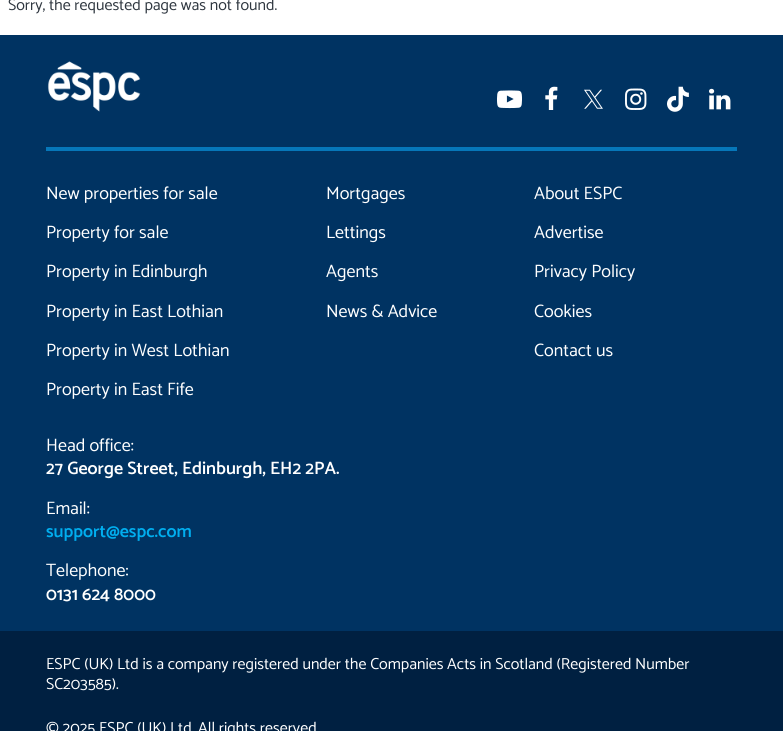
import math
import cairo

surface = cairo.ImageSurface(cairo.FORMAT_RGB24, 783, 731)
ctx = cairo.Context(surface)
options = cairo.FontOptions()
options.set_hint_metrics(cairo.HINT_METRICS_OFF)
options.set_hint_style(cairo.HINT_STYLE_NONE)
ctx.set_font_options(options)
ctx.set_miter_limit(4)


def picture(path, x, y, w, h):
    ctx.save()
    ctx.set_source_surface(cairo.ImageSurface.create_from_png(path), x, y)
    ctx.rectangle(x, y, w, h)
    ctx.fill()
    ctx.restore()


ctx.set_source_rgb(1, 1, 1)
ctx.paint()
ctx.select_font_face("Catamaran")
ctx.set_font_size(16)
ctx.set_source_rgb(0.184, 0.216, 0.251)
ctx.move_to(8, 10)
ctx.show_text("Sorry, the requested page was not found.")
ctx.set_source_rgb(0, 0.2, 0.384)
ctx.rectangle(0, 35, 783, 596)
ctx.fill()
ctx.set_source_rgb(0.024, 0.467, 0.725)
ctx.rectangle(46, 147, 691, 4)
ctx.fill()
picture("img1.png", 47, 61, 94, 51)
picture("img2.png", 497, 90, 25, 19)
picture("img3.png", 545, 86, 13, 24)
picture("img4.png", 584, 89, 19, 20)
picture("img5.png", 625, 88, 22, 22)
picture("img6.png", 667, 86, 22, 26)
picture("img7.png", 709, 88, 22, 22)
ctx.set_font_size(18)
ctx.set_source_rgb(1, 1, 1)
ctx.move_to(46, 199)
ctx.show_text("New properties for sale")
ctx.move_to(46, 238)
ctx.show_text("Property for sale")
ctx.move_to(46, 277)
ctx.show_text("Property in Edinburgh")
ctx.move_to(46, 317)
ctx.show_text("Property in East Lothian")
ctx.move_to(46, 356)
ctx.show_text("Property in West Lothian")
ctx.move_to(46, 395)
ctx.show_text("Property in East Fife")
ctx.move_to(326, 199)
ctx.show_text("Mortgages")
ctx.move_to(326, 238)
ctx.show_text("Lettings")
ctx.move_to(326, 277)
ctx.show_text("Agents")
ctx.move_to(326, 317)
ctx.show_text("News & Advice")
ctx.move_to(534, 199)
ctx.show_text("About ESPC")
ctx.move_to(534, 238)
ctx.show_text("Advertise")
ctx.move_to(534, 277)
ctx.show_text("Privacy Policy")
ctx.move_to(534, 317)
ctx.show_text("Cookies")
ctx.move_to(534, 356)
ctx.show_text("Contact us")
ctx.move_to(46, 451)
ctx.show_text("Head office:")
ctx.select_font_face("Catamaran SemiBold")
ctx.move_to(46, 474)
ctx.show_text("27 George Street, Edinburgh, EH2 2PA.")
ctx.select_font_face("Catamaran")
ctx.move_to(46, 514)
ctx.show_text("Email:")
ctx.select_font_face("Catamaran SemiBold")
ctx.set_source_rgb(0, 0.682, 0.937)
ctx.move_to(46, 537)
ctx.show_text("support@espc.com")
ctx.select_font_face("Catamaran")
ctx.set_source_rgb(1, 1, 1)
ctx.move_to(46, 576)
ctx.show_text("Telephone:")
ctx.select_font_face("Catamaran SemiBold")
ctx.move_to(46, 600)
ctx.show_text("0131 624 8000")
ctx.set_source_rgb(0, 0.125, 0.255)
ctx.rectangle(0, 631, 783, 100)
ctx.fill()
ctx.select_font_face("Catamaran")
ctx.set_font_size(16)
ctx.set_source_rgb(1, 1, 1)
ctx.move_to(46, 669)
ctx.show_text("ESPC (UK) Ltd is a company registered under the Companies Acts in Scotland (Registered Number")
ctx.move_to(46, 689)
ctx.show_text("SC203585).")
ctx.move_to(46, 733)
ctx.show_text("© 2025 ESPC (UK) Ltd. All rights reserved")
surface.write_to_png("page.png")
